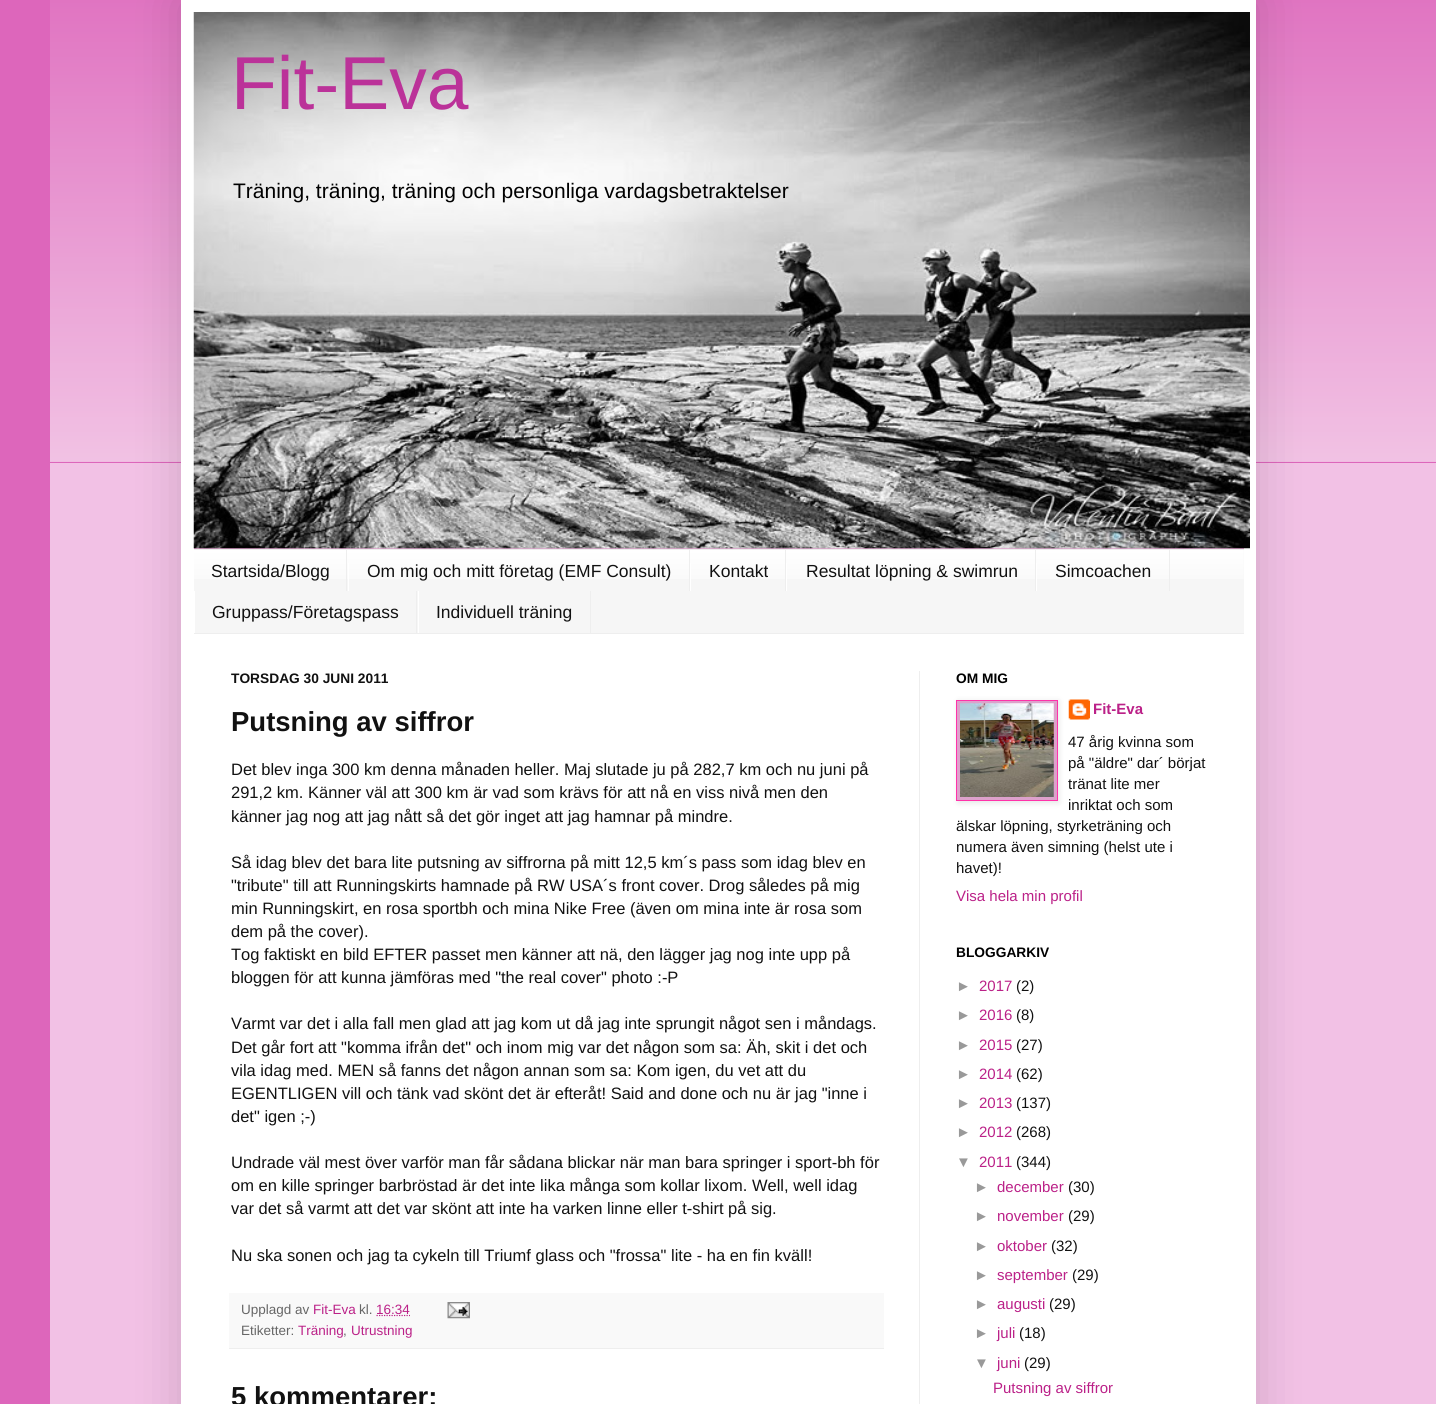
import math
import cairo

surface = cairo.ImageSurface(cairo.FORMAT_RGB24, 1436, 1404)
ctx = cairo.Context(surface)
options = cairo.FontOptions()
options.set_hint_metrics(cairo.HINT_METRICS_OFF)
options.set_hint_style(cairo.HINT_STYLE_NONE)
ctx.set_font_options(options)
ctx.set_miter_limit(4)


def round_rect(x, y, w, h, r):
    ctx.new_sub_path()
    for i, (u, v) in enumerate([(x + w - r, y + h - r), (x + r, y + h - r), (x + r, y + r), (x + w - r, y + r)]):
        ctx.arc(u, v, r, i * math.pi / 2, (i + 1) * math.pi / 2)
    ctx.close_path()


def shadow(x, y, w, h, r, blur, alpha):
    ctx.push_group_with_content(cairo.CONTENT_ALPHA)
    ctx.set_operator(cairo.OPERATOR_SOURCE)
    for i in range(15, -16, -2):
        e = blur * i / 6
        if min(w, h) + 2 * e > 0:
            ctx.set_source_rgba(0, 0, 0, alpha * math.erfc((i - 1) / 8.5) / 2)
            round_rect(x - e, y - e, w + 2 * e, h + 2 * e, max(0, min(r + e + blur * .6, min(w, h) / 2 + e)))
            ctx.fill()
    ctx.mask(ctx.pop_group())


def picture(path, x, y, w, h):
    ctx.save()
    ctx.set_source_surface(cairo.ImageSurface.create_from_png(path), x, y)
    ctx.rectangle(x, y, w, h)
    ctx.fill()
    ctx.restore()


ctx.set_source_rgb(0.867, 0.4, 0.733)
ctx.paint()
picture("img1.png", 50, 0, 1386, 462)
ctx.set_source_rgb(0.949, 0.757, 0.898)
ctx.rectangle(50, 463, 1386, 941)
ctx.fill()
ctx.set_source_rgb(0, 0, 0)
shadow(181, 0, 1075, 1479, 0, 25, 0.15)
ctx.set_source_rgb(1, 1, 1)
ctx.rectangle(181, 0, 1075, 1404)
ctx.fill()
ctx.set_source_rgb(0.867, 0.631, 0.796)
ctx.rectangle(194, 548, 1050, 1)
ctx.fill()
picture("img2.png", 193, 12, 1057, 537)
ctx.select_font_face("Liberation Sans")
ctx.set_font_size(75)
ctx.set_source_rgb(0.733, 0.196, 0.6)
ctx.move_to(231, 109)
ctx.show_text("Fit-Eva")
ctx.set_font_size(21)
ctx.set_source_rgb(0, 0, 0)
ctx.move_to(233, 198)
ctx.show_text("Träning, träning, träning och personliga vardagsbetraktelser")
ctx.set_source_rgb(0.961, 0.961, 0.961)
ctx.rectangle(194, 550, 1050, 83)
ctx.fill()
picture("img3.png", 194, 550, 1050, 29)
ctx.set_source_rgb(0.933, 0.933, 0.933)
ctx.rectangle(194, 549, 1050, 1)
ctx.fill()
ctx.rectangle(194, 633, 1050, 1)
ctx.fill()
ctx.rectangle(346, 550, 1, 41)
ctx.fill()
ctx.set_font_size(17.5)
ctx.set_source_rgb(0.067, 0.067, 0.067)
ctx.move_to(211, 577)
ctx.show_text("Startsida/Blogg")
ctx.set_source_rgb(0.933, 0.933, 0.933)
ctx.rectangle(689, 550, 1, 41)
ctx.fill()
ctx.set_source_rgb(1, 1, 1)
ctx.rectangle(348, 563, 1, 28)
ctx.fill()
ctx.set_source_rgb(0.067, 0.067, 0.067)
ctx.move_to(367, 577)
ctx.show_text("Om mig och mitt företag (EMF Consult)")
ctx.set_source_rgb(0.933, 0.933, 0.933)
ctx.rectangle(785, 550, 1, 41)
ctx.fill()
ctx.set_source_rgb(1, 1, 1)
ctx.rectangle(690, 563, 1, 28)
ctx.fill()
ctx.set_source_rgb(0.067, 0.067, 0.067)
ctx.move_to(709, 577)
ctx.show_text("Kontakt")
ctx.set_source_rgb(0.933, 0.933, 0.933)
ctx.rectangle(1035, 550, 1, 41)
ctx.fill()
ctx.set_source_rgb(1, 1, 1)
ctx.rectangle(786, 563, 1, 28)
ctx.fill()
ctx.set_source_rgb(0.067, 0.067, 0.067)
ctx.move_to(806, 577)
ctx.show_text("Resultat löpning & swimrun")
ctx.set_source_rgb(0.933, 0.933, 0.933)
ctx.rectangle(1169, 550, 1, 41)
ctx.fill()
ctx.set_source_rgb(1, 1, 1)
ctx.rectangle(1036, 563, 1, 28)
ctx.fill()
ctx.set_source_rgb(0.067, 0.067, 0.067)
ctx.move_to(1055, 577)
ctx.show_text("Simcoachen")
ctx.set_source_rgb(0.933, 0.933, 0.933)
ctx.rectangle(416, 591, 1, 42)
ctx.fill()
ctx.set_source_rgb(1, 1, 1)
ctx.rectangle(194, 591, 1, 42)
ctx.fill()
ctx.set_source_rgb(0.067, 0.067, 0.067)
ctx.move_to(212, 618)
ctx.show_text("Gruppass/Företagspass")
ctx.set_source_rgb(0.933, 0.933, 0.933)
ctx.rectangle(590, 591, 1, 42)
ctx.fill()
ctx.set_source_rgb(1, 1, 1)
ctx.rectangle(418, 591, 1, 42)
ctx.fill()
ctx.set_source_rgb(0.067, 0.067, 0.067)
ctx.move_to(436, 618)
ctx.show_text("Individuell träning")
ctx.set_source_rgb(0.933, 0.933, 0.933)
ctx.rectangle(919, 671, 1, 733)
ctx.fill()
ctx.select_font_face("Liberation Sans", cairo.FONT_SLANT_NORMAL, cairo.FONT_WEIGHT_BOLD)
ctx.set_font_size(13.75)
ctx.set_source_rgb(0.067, 0.067, 0.067)
ctx.move_to(231, 683)
ctx.show_text("TORSDAG 30 JUNI 2011")
ctx.set_font_size(27.5)
ctx.move_to(231, 731)
ctx.show_text("Putsning av siffror")
ctx.select_font_face("Liberation Sans")
ctx.set_font_size(16.5)
ctx.move_to(231, 775)
ctx.show_text("Det blev inga 300 km denna månaden heller. Maj slutade ju på 282,7 km och nu juni på")
ctx.move_to(231, 798)
ctx.show_text("291,2 km. Känner väl att 300 km är vad som krävs för att nå en viss nivå men den")
ctx.move_to(231, 822)
ctx.show_text("känner jag nog att jag nått så det gör inget att jag hamnar på mindre.")
ctx.move_to(231, 868)
ctx.show_text("Så idag blev det bara lite putsning av siffrorna på mitt 12,5 km´s pass som idag blev en")
ctx.move_to(231, 891)
ctx.show_text("\"tribute\" till att Runningskirts hamnade på RW USA´s front cover. Drog således på mig")
ctx.move_to(231, 914)
ctx.show_text("min Runningskirt, en rosa sportbh och mina Nike Free (även om mina inte är rosa som")
ctx.move_to(231, 937)
ctx.show_text("dem på the cover).")
ctx.move_to(231, 960)
ctx.show_text("Tog faktiskt en bild EFTER passet men känner att nä, den lägger jag nog inte upp på")
ctx.move_to(231, 983)
ctx.show_text("bloggen för att kunna jämföras med \"the real cover\" photo :-P")
ctx.move_to(231, 1029)
ctx.show_text("Varmt var det i alla fall men glad att jag kom ut då jag inte sprungit något sen i måndags.")
ctx.move_to(231, 1053)
ctx.show_text("Det går fort att \"komma ifrån det\" och inom mig var det någon som sa: Äh, skit i det och")
ctx.move_to(231, 1076)
ctx.show_text("vila idag med. MEN så fanns det någon annan som sa: Kom igen, du vet att du")
ctx.move_to(231, 1099)
ctx.show_text("EGENTLIGEN vill och tänk vad skönt det är efteråt! Said and done och nu är jag \"inne i")
ctx.move_to(231, 1122)
ctx.show_text("det\" igen ;-)")
ctx.move_to(231, 1168)
ctx.show_text("Undrade väl mest över varför man får sådana blickar när man bara springer i sport-bh för")
ctx.move_to(231, 1191)
ctx.show_text("om en kille springer barbröstad är det inte lika många som kollar lixom. Well, well idag")
ctx.move_to(231, 1214)
ctx.show_text("var det så varmt att det var skönt att inte ha varken linne eller t-shirt på sig.")
ctx.move_to(231, 1261)
ctx.show_text("Nu ska sonen och jag ta cykeln till Triumf glass och \"frossa\" lite - ha en fin kväll!")
ctx.set_source_rgb(0.976, 0.976, 0.976)
ctx.rectangle(229, 1293, 655, 55)
ctx.fill()
ctx.set_source_rgb(0.933, 0.933, 0.933)
ctx.rectangle(229, 1348, 655, 1)
ctx.fill()
ctx.set_font_size(13.5)
ctx.set_source_rgb(0.4, 0.4, 0.4)
ctx.move_to(241, 1314)
ctx.show_text("Upplagd av")
ctx.set_source_rgb(0.733, 0.129, 0.533)
ctx.move_to(313, 1314)
ctx.show_text("Fit-Eva")
ctx.set_source_rgb(0.4, 0.4, 0.4)
ctx.move_to(359, 1314)
ctx.show_text("kl.")
ctx.new_path()
ctx.move_to(376.5, 1315.5)
ctx.line_to(410, 1315.5)
ctx.set_source_rgb(0.733, 0.129, 0.533)
ctx.set_line_width(1.2)
ctx.set_dash([1.25, 1.25])
ctx.stroke()
ctx.move_to(376, 1314)
ctx.show_text("16:34")
picture("img4.png", 447, 1302, 23, 17)
ctx.set_source_rgb(0.4, 0.4, 0.4)
ctx.move_to(241, 1335)
ctx.show_text("Etiketter:")
ctx.set_source_rgb(0.733, 0.129, 0.533)
ctx.move_to(298, 1335)
ctx.show_text("Träning")
ctx.set_source_rgb(0.4, 0.4, 0.4)
ctx.move_to(343, 1335)
ctx.show_text(",")
ctx.set_source_rgb(0.733, 0.129, 0.533)
ctx.move_to(351, 1335)
ctx.show_text("Utrustning")
ctx.select_font_face("Liberation Sans", cairo.FONT_SLANT_NORMAL, cairo.FONT_WEIGHT_BOLD)
ctx.set_font_size(27.5)
ctx.set_source_rgb(0.067, 0.067, 0.067)
ctx.move_to(231, 1406)
ctx.show_text("5 kommentarer:")
ctx.set_font_size(13.75)
ctx.set_source_rgb(0, 0, 0)
ctx.move_to(956, 683)
ctx.show_text("OM MIG")
picture("img6.png", 1068, 699, 22, 21)
ctx.set_source_rgb(0, 0, 0)
shadow(958, 701, 101, 102, 0, 3, 0.1)
ctx.set_source_rgb(0.867, 0.631, 0.796)
ctx.rectangle(956.5, 700.5, 101, 100)
ctx.fill_preserve()
ctx.set_source_rgb(1, 0.196, 0.663)
ctx.set_line_width(1)
ctx.set_dash([])
ctx.stroke()
picture("img5.png", 960, 703, 94, 94)
ctx.set_font_size(15)
ctx.set_source_rgb(0.733, 0.129, 0.533)
ctx.move_to(1093, 714)
ctx.show_text("Fit-Eva")
ctx.select_font_face("Liberation Sans")
ctx.set_source_rgb(0.067, 0.067, 0.067)
ctx.move_to(1068, 747)
ctx.show_text("47 årig kvinna som")
ctx.move_to(1068, 768)
ctx.show_text("på \"äldre\" dar´ börjat")
ctx.move_to(1068, 789)
ctx.show_text("tränat lite mer")
ctx.move_to(1068, 810)
ctx.show_text("inriktat och som")
ctx.move_to(956, 831)
ctx.show_text("älskar löpning, styrketräning och")
ctx.move_to(956, 852)
ctx.show_text("numera även simning (helst ute i")
ctx.move_to(956, 873)
ctx.show_text("havet)!")
ctx.set_source_rgb(0.733, 0.129, 0.533)
ctx.move_to(956, 901)
ctx.show_text("Visa hela min profil")
ctx.select_font_face("Liberation Sans", cairo.FONT_SLANT_NORMAL, cairo.FONT_WEIGHT_BOLD)
ctx.set_font_size(13.75)
ctx.set_source_rgb(0, 0, 0)
ctx.move_to(956, 957)
ctx.show_text("BLOGGARKIV")
ctx.select_font_face("Liberation Sans")
ctx.set_font_size(15)
ctx.set_source_rgb(0.6, 0.6, 0.6)
ctx.move_to(956, 991)
ctx.show_text("►")
ctx.set_source_rgb(0.733, 0.129, 0.533)
ctx.move_to(979, 991)
ctx.show_text("2017")
ctx.set_source_rgb(0.067, 0.067, 0.067)
ctx.move_to(1016, 991)
ctx.show_text("(2)")
ctx.set_source_rgb(0.6, 0.6, 0.6)
ctx.move_to(956, 1020)
ctx.show_text("►")
ctx.set_source_rgb(0.733, 0.129, 0.533)
ctx.move_to(979, 1020)
ctx.show_text("2016")
ctx.set_source_rgb(0.067, 0.067, 0.067)
ctx.move_to(1016, 1020)
ctx.show_text("(8)")
ctx.set_source_rgb(0.6, 0.6, 0.6)
ctx.move_to(956, 1050)
ctx.show_text("►")
ctx.set_source_rgb(0.733, 0.129, 0.533)
ctx.move_to(979, 1050)
ctx.show_text("2015")
ctx.set_source_rgb(0.067, 0.067, 0.067)
ctx.move_to(1016, 1050)
ctx.show_text("(27)")
ctx.set_source_rgb(0.6, 0.6, 0.6)
ctx.move_to(956, 1079)
ctx.show_text("►")
ctx.set_source_rgb(0.733, 0.129, 0.533)
ctx.move_to(979, 1079)
ctx.show_text("2014")
ctx.set_source_rgb(0.067, 0.067, 0.067)
ctx.move_to(1016, 1079)
ctx.show_text("(62)")
ctx.set_source_rgb(0.6, 0.6, 0.6)
ctx.move_to(956, 1108)
ctx.show_text("►")
ctx.set_source_rgb(0.733, 0.129, 0.533)
ctx.move_to(979, 1108)
ctx.show_text("2013")
ctx.set_source_rgb(0.067, 0.067, 0.067)
ctx.move_to(1016, 1108)
ctx.show_text("(137)")
ctx.set_source_rgb(0.6, 0.6, 0.6)
ctx.move_to(956, 1137)
ctx.show_text("►")
ctx.set_source_rgb(0.733, 0.129, 0.533)
ctx.move_to(979, 1137)
ctx.show_text("2012")
ctx.set_source_rgb(0.067, 0.067, 0.067)
ctx.move_to(1016, 1137)
ctx.show_text("(268)")
ctx.set_source_rgb(0.6, 0.6, 0.6)
ctx.move_to(956, 1167)
ctx.show_text("▼")
ctx.set_source_rgb(0.733, 0.129, 0.533)
ctx.move_to(979, 1167)
ctx.show_text("2011")
ctx.set_source_rgb(0.067, 0.067, 0.067)
ctx.move_to(1016, 1167)
ctx.show_text("(344)")
ctx.set_source_rgb(0.6, 0.6, 0.6)
ctx.move_to(974, 1192)
ctx.show_text("►")
ctx.set_source_rgb(0.733, 0.129, 0.533)
ctx.move_to(997, 1192)
ctx.show_text("december")
ctx.set_source_rgb(0.067, 0.067, 0.067)
ctx.move_to(1068, 1192)
ctx.show_text("(30)")
ctx.set_source_rgb(0.6, 0.6, 0.6)
ctx.move_to(974, 1221)
ctx.show_text("►")
ctx.set_source_rgb(0.733, 0.129, 0.533)
ctx.move_to(997, 1221)
ctx.show_text("november")
ctx.set_source_rgb(0.067, 0.067, 0.067)
ctx.move_to(1068, 1221)
ctx.show_text("(29)")
ctx.set_source_rgb(0.6, 0.6, 0.6)
ctx.move_to(974, 1251)
ctx.show_text("►")
ctx.set_source_rgb(0.733, 0.129, 0.533)
ctx.move_to(997, 1251)
ctx.show_text("oktober")
ctx.set_source_rgb(0.067, 0.067, 0.067)
ctx.move_to(1051, 1251)
ctx.show_text("(32)")
ctx.set_source_rgb(0.6, 0.6, 0.6)
ctx.move_to(974, 1280)
ctx.show_text("►")
ctx.set_source_rgb(0.733, 0.129, 0.533)
ctx.move_to(997, 1280)
ctx.show_text("september")
ctx.set_source_rgb(0.067, 0.067, 0.067)
ctx.move_to(1072, 1280)
ctx.show_text("(29)")
ctx.set_source_rgb(0.6, 0.6, 0.6)
ctx.move_to(974, 1309)
ctx.show_text("►")
ctx.set_source_rgb(0.733, 0.129, 0.533)
ctx.move_to(997, 1309)
ctx.show_text("augusti")
ctx.set_source_rgb(0.067, 0.067, 0.067)
ctx.move_to(1049, 1309)
ctx.show_text("(29)")
ctx.set_source_rgb(0.6, 0.6, 0.6)
ctx.move_to(974, 1338)
ctx.show_text("►")
ctx.set_source_rgb(0.733, 0.129, 0.533)
ctx.move_to(997, 1338)
ctx.show_text("juli")
ctx.set_source_rgb(0.067, 0.067, 0.067)
ctx.move_to(1019, 1338)
ctx.show_text("(18)")
ctx.set_source_rgb(0.6, 0.6, 0.6)
ctx.move_to(974, 1368)
ctx.show_text("▼")
ctx.set_source_rgb(0.733, 0.129, 0.533)
ctx.move_to(997, 1368)
ctx.show_text("juni")
ctx.set_source_rgb(0.067, 0.067, 0.067)
ctx.move_to(1024, 1368)
ctx.show_text("(29)")
ctx.set_source_rgb(0.733, 0.129, 0.533)
ctx.move_to(993, 1393)
ctx.show_text("Putsning av siffror")
surface.write_to_png("page.png")
